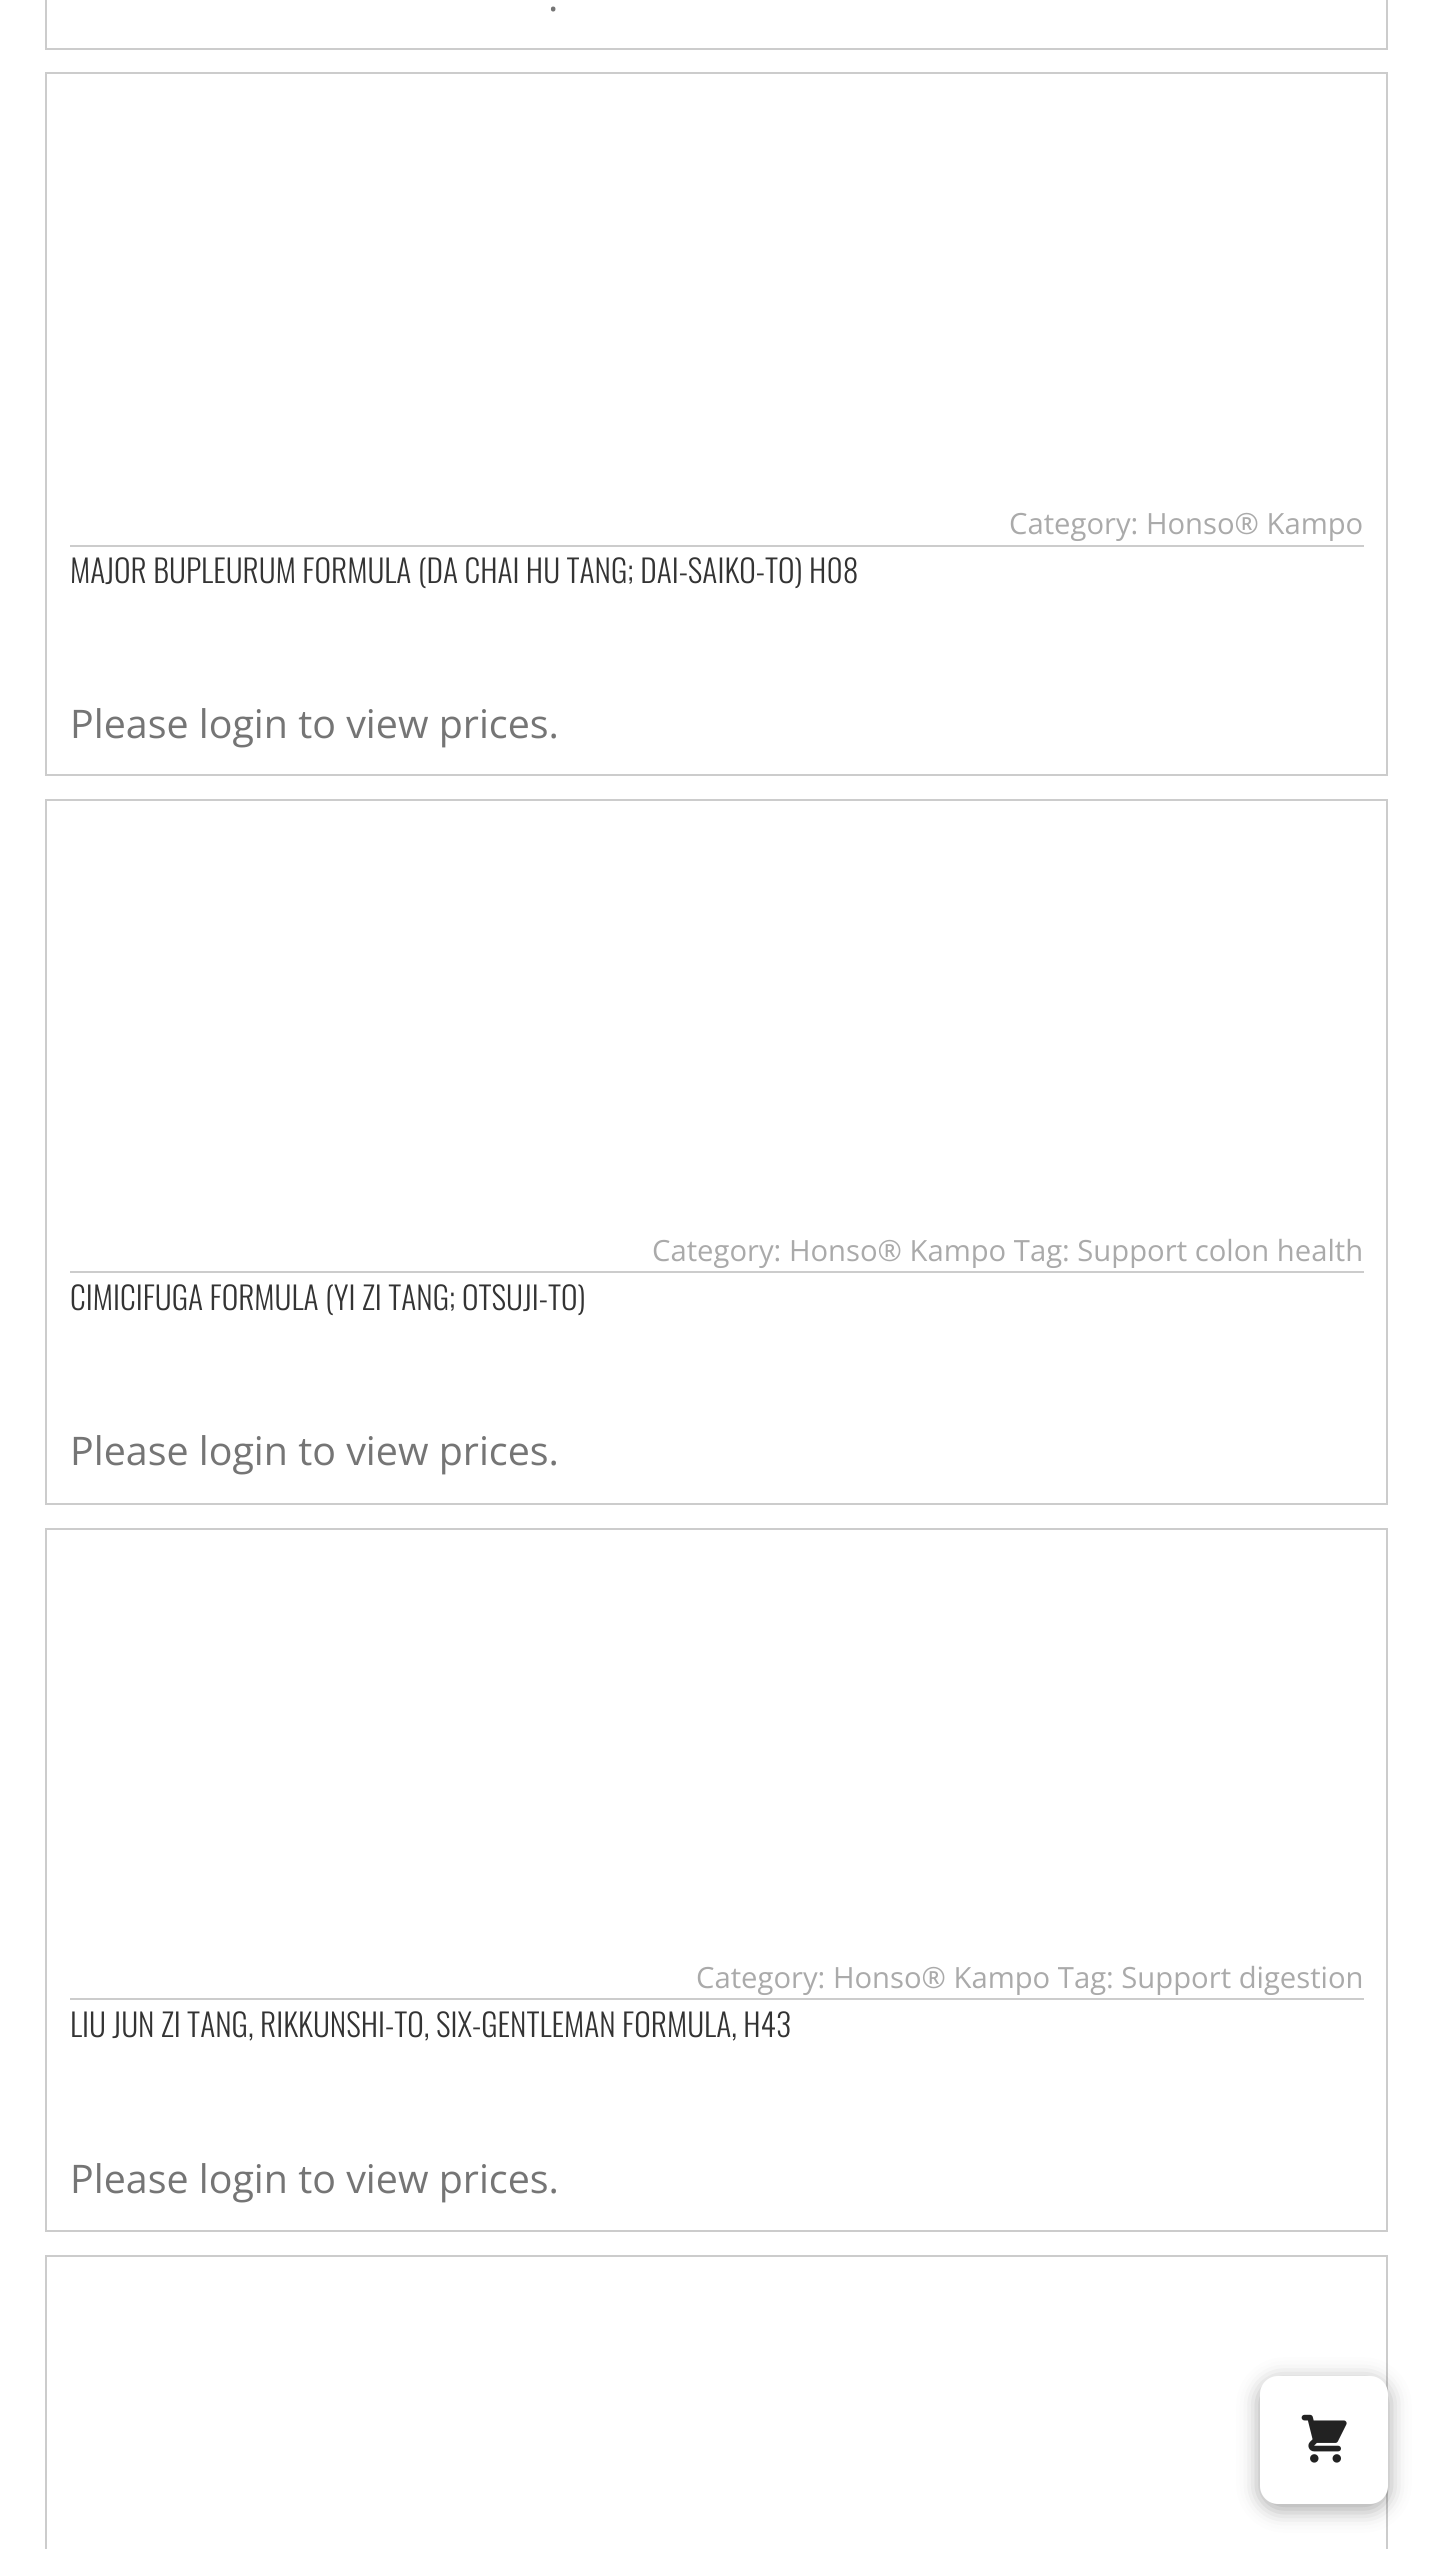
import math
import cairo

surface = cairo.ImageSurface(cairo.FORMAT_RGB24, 1432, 2549)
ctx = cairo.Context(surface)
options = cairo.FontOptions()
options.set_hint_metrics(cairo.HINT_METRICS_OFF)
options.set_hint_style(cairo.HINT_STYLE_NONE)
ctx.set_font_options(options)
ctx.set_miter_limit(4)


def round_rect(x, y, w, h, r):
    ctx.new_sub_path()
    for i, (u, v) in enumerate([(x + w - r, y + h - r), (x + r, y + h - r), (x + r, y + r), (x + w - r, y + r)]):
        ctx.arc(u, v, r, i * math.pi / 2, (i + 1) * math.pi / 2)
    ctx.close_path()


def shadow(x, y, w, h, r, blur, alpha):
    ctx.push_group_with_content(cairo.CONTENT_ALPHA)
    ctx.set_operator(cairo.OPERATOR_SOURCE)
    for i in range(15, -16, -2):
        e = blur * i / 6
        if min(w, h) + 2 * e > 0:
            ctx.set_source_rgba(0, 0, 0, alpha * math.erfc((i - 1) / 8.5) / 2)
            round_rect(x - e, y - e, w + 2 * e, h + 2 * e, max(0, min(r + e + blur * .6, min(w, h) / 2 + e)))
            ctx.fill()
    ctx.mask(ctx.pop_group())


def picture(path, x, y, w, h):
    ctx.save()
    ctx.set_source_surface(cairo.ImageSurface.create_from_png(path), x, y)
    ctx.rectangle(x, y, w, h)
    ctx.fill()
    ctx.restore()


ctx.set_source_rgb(1, 1, 1)
ctx.paint()
ctx.rectangle(46, -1, 1341, 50)
ctx.set_source_rgb(0.8, 0.8, 0.8)
ctx.stroke()
ctx.select_font_face("Open Sans")
ctx.set_font_size(39.4)
ctx.set_source_rgb(0.459, 0.459, 0.459)
ctx.move_to(548, 11)
ctx.show_text(".")
ctx.rectangle(46, 73, 1341, 702)
ctx.set_source_rgb(0.8, 0.8, 0.8)
ctx.stroke()
ctx.rectangle(70, 545, 1294, 2)
ctx.fill()
ctx.set_font_size(29.25)
ctx.set_source_rgb(0.667, 0.667, 0.667)
ctx.move_to(1009, 534)
ctx.show_text("Category: Honso® Kampo")
ctx.select_font_face("Oswald Light")
ctx.set_font_size(31.5)
ctx.set_source_rgb(0.2, 0.2, 0.2)
ctx.move_to(70, 583)
ctx.show_text("MAJOR BUPLEURUM FORMULA (DA CHAI HU TANG; DAI-SAIKO-TO) H08")
ctx.select_font_face("Open Sans")
ctx.set_font_size(39.4)
ctx.set_source_rgb(0.459, 0.459, 0.459)
ctx.move_to(70, 738)
ctx.show_text("Please login to view prices.")
ctx.rectangle(46, 800, 1341, 704)
ctx.set_source_rgb(0.8, 0.8, 0.8)
ctx.stroke()
ctx.rectangle(70, 1271, 1294, 2)
ctx.fill()
ctx.set_font_size(29.25)
ctx.set_source_rgb(0.667, 0.667, 0.667)
ctx.move_to(652, 1261)
ctx.show_text("Category: Honso® Kampo Tag: Support colon health")
ctx.select_font_face("Oswald Light")
ctx.set_font_size(31.5)
ctx.set_source_rgb(0.2, 0.2, 0.2)
ctx.move_to(70, 1310)
ctx.show_text("CIMICIFUGA FORMULA (YI ZI TANG; OTSUJI-TO)")
ctx.select_font_face("Open Sans")
ctx.set_font_size(39.4)
ctx.set_source_rgb(0.459, 0.459, 0.459)
ctx.move_to(70, 1465)
ctx.show_text("Please login to view prices.")
ctx.rectangle(46, 1529, 1341, 702)
ctx.set_source_rgb(0.8, 0.8, 0.8)
ctx.stroke()
ctx.rectangle(70, 1998, 1294, 2)
ctx.fill()
ctx.set_font_size(29.25)
ctx.set_source_rgb(0.667, 0.667, 0.667)
ctx.move_to(696, 1988)
ctx.show_text("Category: Honso® Kampo Tag: Support digestion")
ctx.select_font_face("Oswald Light")
ctx.set_font_size(31.5)
ctx.set_source_rgb(0.2, 0.2, 0.2)
ctx.move_to(70, 2037)
ctx.show_text("LIU JUN ZI TANG, RIKKUNSHI-TO, SIX-GENTLEMAN FORMULA, H43")
ctx.select_font_face("Open Sans")
ctx.set_font_size(39.4)
ctx.set_source_rgb(0.459, 0.459, 0.459)
ctx.move_to(70, 2193)
ctx.show_text("Please login to view prices.")
ctx.rectangle(46, 2256, 1341, 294)
ctx.set_source_rgb(0.8, 0.8, 0.8)
ctx.stroke()
ctx.set_source_rgb(0, 0, 0)
shadow(1260, 2381, 128, 128, 18, 11, 0.37)
ctx.set_source_rgb(1, 1, 1)
round_rect(1260, 2376, 128, 128, 18)
ctx.fill()
picture("img1.png", 1301, 2414, 46, 49)
surface.write_to_png("page.png")
